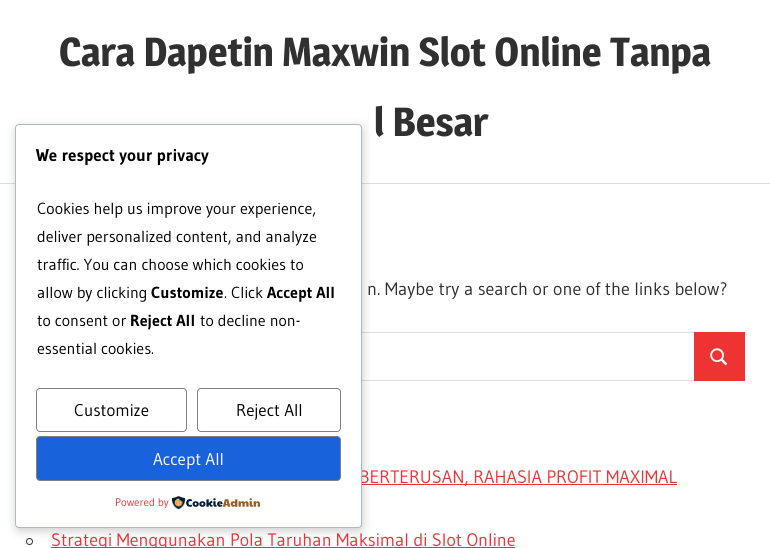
import math
import cairo

surface = cairo.ImageSurface(cairo.FORMAT_RGB24, 770, 548)
ctx = cairo.Context(surface)
options = cairo.FontOptions()
options.set_hint_metrics(cairo.HINT_METRICS_OFF)
options.set_hint_style(cairo.HINT_STYLE_NONE)
ctx.set_font_options(options)
ctx.set_miter_limit(4)


def round_rect(x, y, w, h, r):
    ctx.new_sub_path()
    for i, (u, v) in enumerate([(x + w - r, y + h - r), (x + r, y + h - r), (x + r, y + r), (x + w - r, y + r)]):
        ctx.arc(u, v, r, i * math.pi / 2, (i + 1) * math.pi / 2)
    ctx.close_path()


def shadow(x, y, w, h, r, blur, alpha):
    ctx.push_group_with_content(cairo.CONTENT_ALPHA)
    ctx.set_operator(cairo.OPERATOR_SOURCE)
    for i in range(15, -16, -2):
        e = blur * i / 6
        if min(w, h) + 2 * e > 0:
            ctx.set_source_rgba(0, 0, 0, alpha * math.erfc((i - 1) / 8.5) / 2)
            round_rect(x - e, y - e, w + 2 * e, h + 2 * e, max(0, min(r + e + blur * .6, min(w, h) / 2 + e)))
            ctx.fill()
    ctx.mask(ctx.pop_group())


def picture(path, x, y, w, h):
    ctx.save()
    ctx.set_source_surface(cairo.ImageSurface.create_from_png(path), x, y)
    ctx.rectangle(x, y, w, h)
    ctx.fill()
    ctx.restore()


ctx.set_source_rgb(1, 1, 1)
ctx.paint()
ctx.set_source_rgb(0.867, 0.867, 0.867)
ctx.rectangle(0, 183, 770, 1)
ctx.fill()
ctx.select_font_face("Magra", cairo.FONT_SLANT_NORMAL, cairo.FONT_WEIGHT_BOLD)
ctx.set_font_size(40)
ctx.set_source_rgb(0.188, 0.188, 0.188)
ctx.move_to(59, 66)
ctx.show_text("Cara Dapetin Maxwin Slot Online Tanpa")
ctx.move_to(374, 136)
ctx.show_text("l Besar")
ctx.select_font_face("Gudea")
ctx.set_font_size(18)
ctx.move_to(367, 295)
ctx.show_text("n. Maybe try a search or one of the links below?")
ctx.rectangle(26.5, 332.5, 668, 48)
ctx.set_source_rgb(0.867, 0.867, 0.867)
ctx.set_line_width(1)
ctx.stroke()
ctx.set_source_rgb(0.933, 0.2, 0.2)
ctx.rectangle(694, 332, 51, 49)
ctx.fill()
picture("img1.png", 710, 348, 18, 18)
ctx.rectangle(362, 484, 315, 1)
ctx.fill()
ctx.move_to(359, 483)
ctx.show_text("BERTERUSAN, RAHASIA PROFIT MAXIMAL")
ctx.new_path()
ctx.arc(29.5, 541.5, 3, 0, 2 * math.pi)
ctx.set_source_rgb(0.188, 0.188, 0.188)
ctx.stroke()
ctx.set_source_rgb(0.933, 0.2, 0.2)
ctx.rectangle(51, 547, 464, 1)
ctx.fill()
ctx.move_to(51, 546)
ctx.show_text("Strategi Menggunakan Pola Taruhan Maksimal di Slot Online")
ctx.set_source_rgb(0, 0, 0)
shadow(16, 127, 347, 404, 4, 5, 0.2)
ctx.set_source_rgb(1, 1, 1)
round_rect(15.5, 124.5, 346, 403, 3.5)
ctx.fill_preserve()
ctx.set_source_rgb(0.671, 0.722, 0.765)
ctx.stroke()
ctx.select_font_face("Gudea", cairo.FONT_SLANT_NORMAL, cairo.FONT_WEIGHT_BOLD)
ctx.set_font_size(17)
ctx.set_source_rgb(0, 0, 0)
ctx.move_to(36, 161)
ctx.show_text("We respect your privacy")
ctx.select_font_face("Gudea")
ctx.set_font_size(16)
ctx.move_to(37, 214)
ctx.show_text("Cookies help us improve your experience,")
ctx.move_to(37, 242)
ctx.show_text("deliver personalized content, and analyze")
ctx.move_to(37, 270)
ctx.show_text("traffic. You can choose which cookies to")
ctx.move_to(37, 298)
ctx.show_text("allow by clicking")
ctx.select_font_face("Gudea", cairo.FONT_SLANT_NORMAL, cairo.FONT_WEIGHT_BOLD)
ctx.move_to(151, 298)
ctx.show_text("Customize")
ctx.select_font_face("Gudea")
ctx.move_to(224, 298)
ctx.show_text(". Click")
ctx.select_font_face("Gudea", cairo.FONT_SLANT_NORMAL, cairo.FONT_WEIGHT_BOLD)
ctx.move_to(267, 298)
ctx.show_text("Accept All")
ctx.select_font_face("Gudea")
ctx.move_to(37, 326)
ctx.show_text("to consent or")
ctx.select_font_face("Gudea", cairo.FONT_SLANT_NORMAL, cairo.FONT_WEIGHT_BOLD)
ctx.move_to(130, 326)
ctx.show_text("Reject All")
ctx.select_font_face("Gudea")
ctx.move_to(200, 326)
ctx.show_text("to decline non-")
ctx.move_to(37, 354)
ctx.show_text("essential cookies.")
round_rect(36.5, 388.5, 150, 43, 3.5)
ctx.set_source_rgb(0.502, 0.502, 0.502)
ctx.stroke()
ctx.set_font_size(17)
ctx.set_source_rgb(0, 0, 0)
ctx.move_to(74, 416)
ctx.show_text("Customize")
round_rect(197.5, 388.5, 143, 43, 3.5)
ctx.set_source_rgb(0.502, 0.502, 0.502)
ctx.stroke()
ctx.set_source_rgb(0, 0, 0)
ctx.move_to(236, 416)
ctx.show_text("Reject All")
ctx.set_source_rgb(0.094, 0.388, 0.863)
round_rect(36.5, 436.5, 304, 44, 3.5)
ctx.fill_preserve()
ctx.set_source_rgb(0.502, 0.502, 0.502)
ctx.stroke()
ctx.set_source_rgb(1, 1, 1)
ctx.move_to(153, 465)
ctx.show_text("Accept All")
ctx.set_font_size(11)
ctx.set_source_rgb(0.933, 0.2, 0.2)
ctx.move_to(115, 506)
ctx.show_text("Powered by")
picture("img2.png", 172, 496, 88, 14)
surface.write_to_png("page.png")
